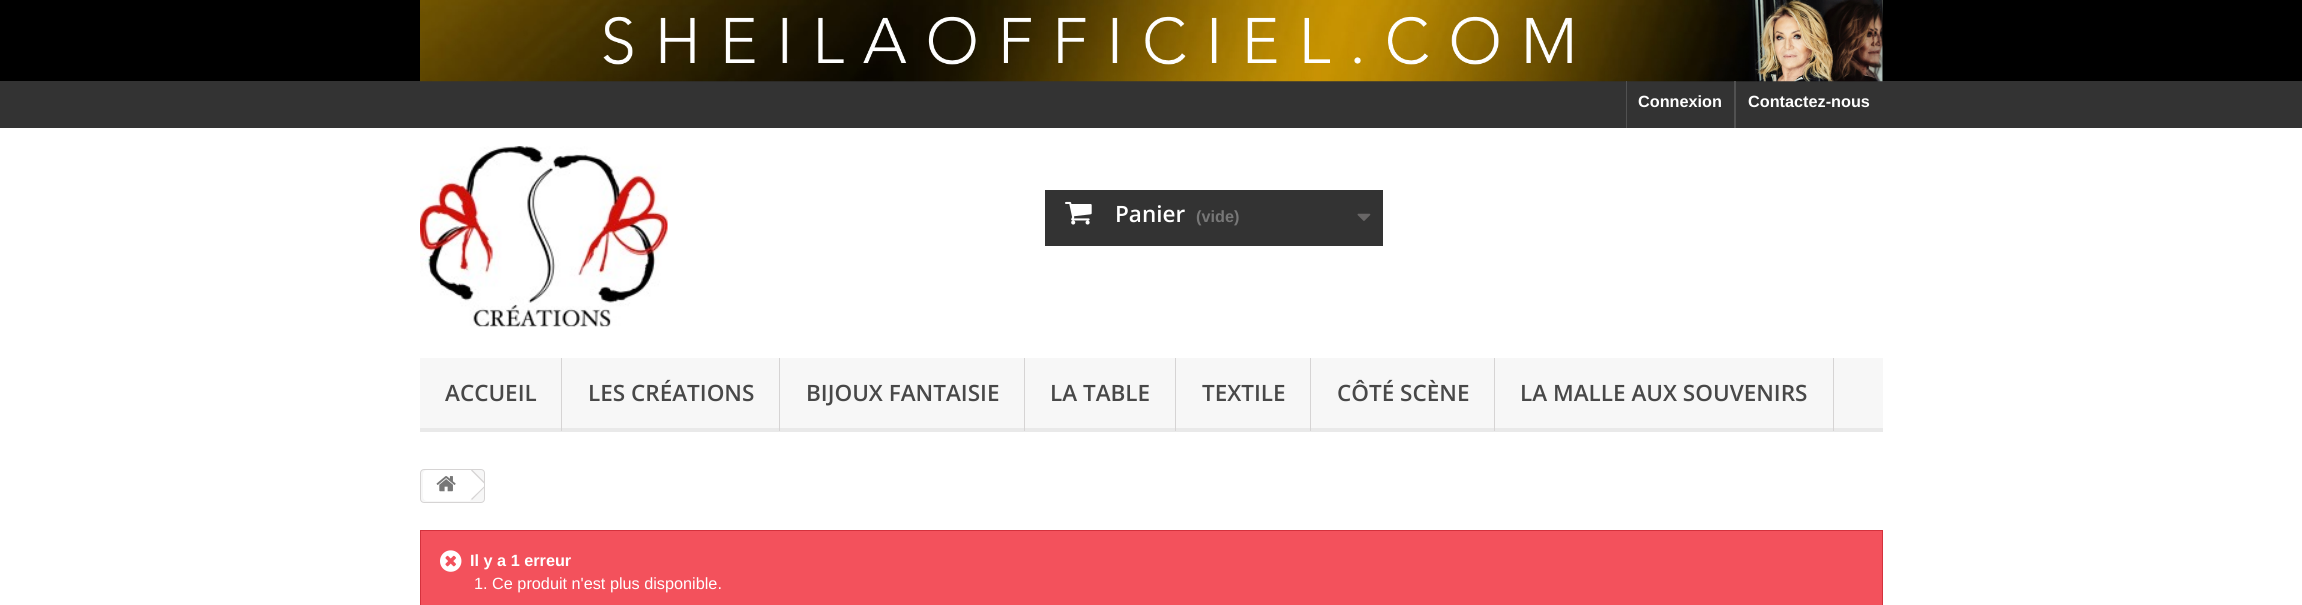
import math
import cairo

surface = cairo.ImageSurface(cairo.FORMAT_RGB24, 2302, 605)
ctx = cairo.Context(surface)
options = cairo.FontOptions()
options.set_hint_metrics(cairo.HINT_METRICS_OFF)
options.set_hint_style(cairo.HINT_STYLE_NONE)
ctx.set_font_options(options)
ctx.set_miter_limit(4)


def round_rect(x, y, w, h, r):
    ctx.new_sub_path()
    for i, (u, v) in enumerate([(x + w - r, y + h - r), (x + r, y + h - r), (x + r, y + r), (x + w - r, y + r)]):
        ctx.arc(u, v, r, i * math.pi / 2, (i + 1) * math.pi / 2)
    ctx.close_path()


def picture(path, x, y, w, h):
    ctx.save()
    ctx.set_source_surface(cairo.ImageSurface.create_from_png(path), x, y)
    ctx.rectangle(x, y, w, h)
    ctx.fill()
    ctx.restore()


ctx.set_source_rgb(1, 1, 1)
ctx.paint()
ctx.set_source_rgb(0, 0, 0)
ctx.rectangle(0, 0, 2302, 81)
ctx.fill()
ctx.set_source_rgb(0.2, 0.2, 0.2)
ctx.rectangle(0, 81, 2302, 47)
ctx.fill()
picture("img1.png", 420, 0, 1463, 82)
ctx.set_source_rgb(0.318, 0.318, 0.318)
ctx.rectangle(1626, 81, 1, 47)
ctx.fill()
ctx.select_font_face("Liberation Sans", cairo.FONT_SLANT_NORMAL, cairo.FONT_WEIGHT_BOLD)
ctx.set_font_size(16.25)
ctx.set_source_rgb(1, 1, 1)
ctx.move_to(1638, 107)
ctx.show_text("Connexion")
ctx.set_source_rgb(0.318, 0.318, 0.318)
ctx.rectangle(1734, 81, 2, 47)
ctx.fill()
ctx.set_source_rgb(1, 1, 1)
ctx.move_to(1748, 107)
ctx.show_text("Contactez-nous")
picture("img2.png", 420, 146, 248, 181)
ctx.set_source_rgb(0.2, 0.2, 0.2)
ctx.rectangle(1045, 190, 338, 56)
ctx.fill()
picture("img3.png", 1065, 201, 27, 24)
ctx.select_font_face("Open Sans SemiBold")
ctx.set_font_size(22.5)
ctx.set_source_rgb(1, 1, 1)
ctx.move_to(1115, 222)
ctx.show_text("Panier")
ctx.select_font_face("Liberation Sans", cairo.FONT_SLANT_NORMAL, cairo.FONT_WEIGHT_BOLD)
ctx.set_font_size(16.25)
ctx.set_source_rgb(0.467, 0.467, 0.467)
ctx.move_to(1196, 222)
ctx.show_text("(vide)")
picture("img4.png", 1357, 213, 14, 8)
ctx.set_source_rgb(0.965, 0.965, 0.965)
ctx.rectangle(420, 358, 1463, 70)
ctx.fill()
ctx.set_source_rgb(0.914, 0.914, 0.914)
ctx.rectangle(420, 428, 1463, 4)
ctx.fill()
ctx.set_source_rgb(0.839, 0.831, 0.831)
ctx.rectangle(561, 358, 1, 73)
ctx.fill()
ctx.select_font_face("Open Sans SemiBold")
ctx.set_font_size(22.5)
ctx.set_source_rgb(0.282, 0.282, 0.282)
ctx.move_to(445, 401)
ctx.show_text("ACCUEIL")
ctx.set_source_rgb(0.839, 0.831, 0.831)
ctx.rectangle(779, 358, 1, 73)
ctx.fill()
ctx.set_source_rgb(0.282, 0.282, 0.282)
ctx.move_to(588, 401)
ctx.show_text("LES CRÉATIONS")
ctx.set_source_rgb(0.839, 0.831, 0.831)
ctx.rectangle(1024, 358, 1, 73)
ctx.fill()
ctx.set_source_rgb(0.282, 0.282, 0.282)
ctx.move_to(806, 401)
ctx.show_text("BIJOUX FANTAISIE")
ctx.set_source_rgb(0.839, 0.831, 0.831)
ctx.rectangle(1175, 358, 1, 73)
ctx.fill()
ctx.set_source_rgb(0.282, 0.282, 0.282)
ctx.move_to(1050, 401)
ctx.show_text("LA TABLE")
ctx.set_source_rgb(0.839, 0.831, 0.831)
ctx.rectangle(1310, 358, 1, 73)
ctx.fill()
ctx.set_source_rgb(0.282, 0.282, 0.282)
ctx.move_to(1202, 401)
ctx.show_text("TEXTILE")
ctx.set_source_rgb(0.839, 0.831, 0.831)
ctx.rectangle(1494, 358, 1, 73)
ctx.fill()
ctx.set_source_rgb(0.282, 0.282, 0.282)
ctx.move_to(1337, 401)
ctx.show_text("CÔTÉ SCÈNE")
ctx.set_source_rgb(0.839, 0.831, 0.831)
ctx.rectangle(1833, 358, 1, 73)
ctx.fill()
ctx.set_source_rgb(0.282, 0.282, 0.282)
ctx.move_to(1520, 401)
ctx.show_text("LA MALLE AUX SOUVENIRS")
ctx.set_source_rgb(0.965, 0.965, 0.965)
round_rect(420.5, 469.5, 64, 33, 3.5)
ctx.fill_preserve()
ctx.set_source_rgb(0.839, 0.831, 0.831)
ctx.set_line_width(1)
ctx.stroke()
ctx.set_source_rgb(1, 1, 1)
ctx.new_path()
ctx.move_to(427, 470)
ctx.line_to(470, 470)
ctx.line_to(470, 501)
ctx.line_to(427, 501)
ctx.curve_to(425, 501, 423, 499, 423, 497)
ctx.line_to(423, 474)
ctx.curve_to(423, 472, 425, 470, 427, 470)
ctx.close_path()
ctx.fill()
picture("img5.png", 436, 476, 20, 16)
ctx.new_path()
ctx.move_to(473, 470.5)
ctx.line_to(472.5, 470)
ctx.line_to(470, 470)
ctx.line_to(469.5, 470.5)
ctx.line_to(457, 483)
ctx.curve_to(456, 484, 456, 485.5, 457, 486.5)
ctx.line_to(469.5, 499)
ctx.curve_to(470.5, 500, 472, 500, 473, 499)
ctx.line_to(484, 488)
ctx.line_to(484, 481.5)
ctx.close_path()
ctx.fill()
ctx.set_source_rgb(0.839, 0.831, 0.831)
ctx.new_path()
ctx.move_to(484, 483.5)
ctx.line_to(471, 470.5)
ctx.line_to(471.5, 470)
ctx.line_to(472.5, 470)
ctx.line_to(484, 481.5)
ctx.close_path()
ctx.move_to(484, 486.5)
ctx.line_to(484, 488)
ctx.line_to(472, 500)
ctx.line_to(471, 499)
ctx.close_path()
ctx.fill()
ctx.set_source_rgb(0.953, 0.318, 0.361)
ctx.rectangle(420.5, 530.5, 1462, 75)
ctx.fill_preserve()
ctx.set_source_rgb(0.831, 0.196, 0.239)
ctx.stroke()
picture("img6.png", 440, 550, 22, 22)
ctx.select_font_face("Liberation Sans", cairo.FONT_SLANT_NORMAL, cairo.FONT_WEIGHT_BOLD)
ctx.set_font_size(16.25)
ctx.set_source_rgb(1, 1, 1)
ctx.move_to(470, 566)
ctx.show_text("Il y a 1 erreur")
ctx.select_font_face("Liberation Sans")
ctx.move_to(474, 589)
ctx.show_text("1. Ce produit n'est plus disponible.")
surface.write_to_png("page.png")
